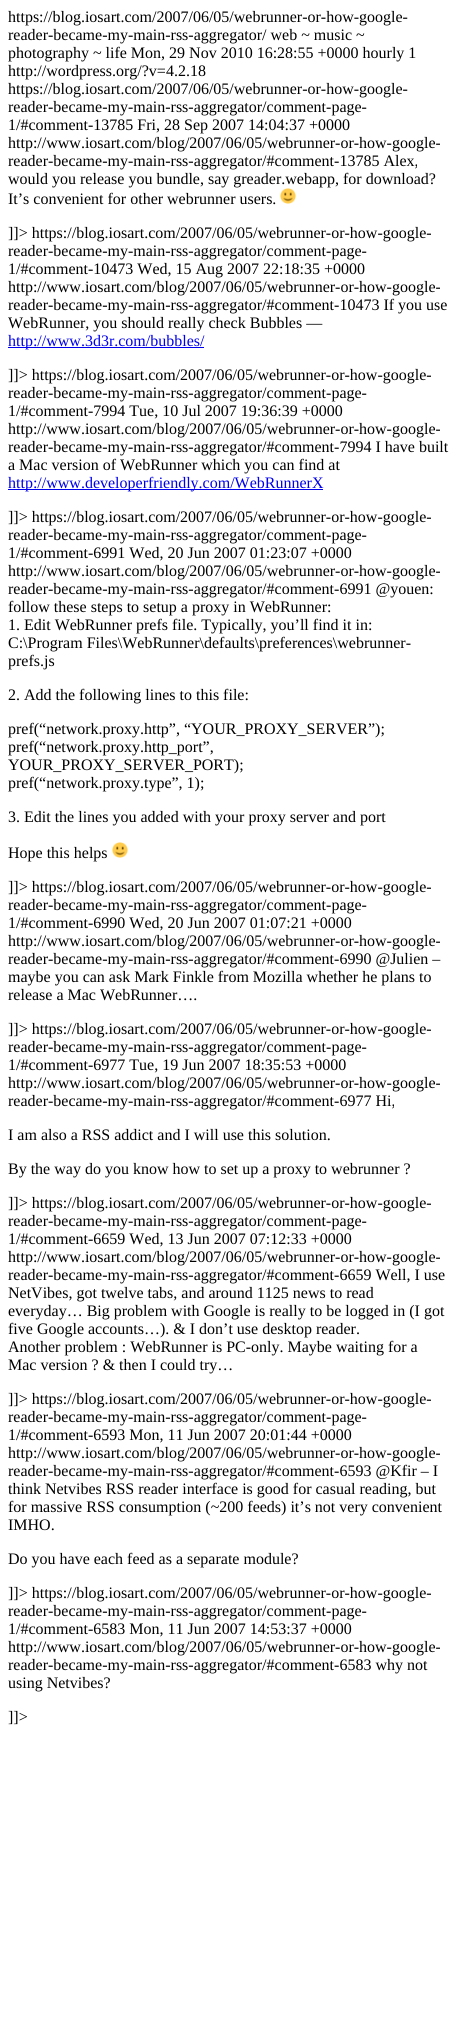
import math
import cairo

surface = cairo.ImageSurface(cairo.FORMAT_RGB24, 457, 2017)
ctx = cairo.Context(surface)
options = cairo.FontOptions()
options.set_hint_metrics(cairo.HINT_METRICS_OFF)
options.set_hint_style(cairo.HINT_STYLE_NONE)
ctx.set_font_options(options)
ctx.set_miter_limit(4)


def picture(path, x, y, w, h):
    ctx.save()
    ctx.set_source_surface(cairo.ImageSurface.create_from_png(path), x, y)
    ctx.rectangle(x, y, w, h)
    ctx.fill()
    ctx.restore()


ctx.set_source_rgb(1, 1, 1)
ctx.paint()
ctx.select_font_face("Liberation Serif")
ctx.set_font_size(16)
ctx.set_source_rgb(0, 0, 0)
ctx.move_to(8, 22)
ctx.show_text("https://blog.iosart.com/2007/06/05/webrunner-or-how-google-")
ctx.move_to(8, 40)
ctx.show_text("reader-became-my-main-rss-aggregator/ web ~ music ~")
ctx.move_to(8, 58)
ctx.show_text("photography ~ life Mon, 29 Nov 2010 16:28:55 +0000 hourly 1")
ctx.move_to(8, 76)
ctx.show_text("http://wordpress.org/?v=4.2.18")
ctx.move_to(8, 94)
ctx.show_text("https://blog.iosart.com/2007/06/05/webrunner-or-how-google-")
ctx.move_to(8, 112)
ctx.show_text("reader-became-my-main-rss-aggregator/comment-page-")
ctx.move_to(8, 130)
ctx.show_text("1/#comment-13785 Fri, 28 Sep 2007 14:04:37 +0000")
ctx.move_to(8, 148)
ctx.show_text("http://www.iosart.com/blog/2007/06/05/webrunner-or-how-google-")
ctx.move_to(8, 166)
ctx.show_text("reader-became-my-main-rss-aggregator/#comment-13785 Alex,")
ctx.move_to(8, 184)
ctx.show_text("would you release you bundle, say greader.webapp, for download?")
ctx.move_to(8, 204)
ctx.show_text("It’s convenient for other webrunner users.")
picture("img1.png", 280, 188, 16, 16)
ctx.move_to(8, 238)
ctx.show_text("]]> https://blog.iosart.com/2007/06/05/webrunner-or-how-google-")
ctx.move_to(8, 256)
ctx.show_text("reader-became-my-main-rss-aggregator/comment-page-")
ctx.move_to(8, 274)
ctx.show_text("1/#comment-10473 Wed, 15 Aug 2007 22:18:35 +0000")
ctx.move_to(8, 292)
ctx.show_text("http://www.iosart.com/blog/2007/06/05/webrunner-or-how-google-")
ctx.move_to(8, 310)
ctx.show_text("reader-became-my-main-rss-aggregator/#comment-10473 If you use")
ctx.move_to(8, 328)
ctx.show_text("WebRunner, you should really check Bubbles —")
ctx.set_source_rgb(0, 0, 0.933)
ctx.rectangle(8, 347, 196, 1)
ctx.fill()
ctx.move_to(8, 346)
ctx.show_text("http://www.3d3r.com/bubbles/")
ctx.set_source_rgb(0, 0, 0)
ctx.move_to(8, 380)
ctx.show_text("]]> https://blog.iosart.com/2007/06/05/webrunner-or-how-google-")
ctx.move_to(8, 398)
ctx.show_text("reader-became-my-main-rss-aggregator/comment-page-")
ctx.move_to(8, 416)
ctx.show_text("1/#comment-7994 Tue, 10 Jul 2007 19:36:39 +0000")
ctx.move_to(8, 434)
ctx.show_text("http://www.iosart.com/blog/2007/06/05/webrunner-or-how-google-")
ctx.move_to(8, 452)
ctx.show_text("reader-became-my-main-rss-aggregator/#comment-7994 I have built")
ctx.move_to(8, 470)
ctx.show_text("a Mac version of WebRunner which you can find at")
ctx.set_source_rgb(0, 0, 0.933)
ctx.rectangle(8, 489, 315, 1)
ctx.fill()
ctx.move_to(8, 488)
ctx.show_text("http://www.developerfriendly.com/WebRunnerX")
ctx.set_source_rgb(0, 0, 0)
ctx.move_to(8, 522)
ctx.show_text("]]> https://blog.iosart.com/2007/06/05/webrunner-or-how-google-")
ctx.move_to(8, 540)
ctx.show_text("reader-became-my-main-rss-aggregator/comment-page-")
ctx.move_to(8, 558)
ctx.show_text("1/#comment-6991 Wed, 20 Jun 2007 01:23:07 +0000")
ctx.move_to(8, 576)
ctx.show_text("http://www.iosart.com/blog/2007/06/05/webrunner-or-how-google-")
ctx.move_to(8, 594)
ctx.show_text("reader-became-my-main-rss-aggregator/#comment-6991 @youen:")
ctx.move_to(8, 612)
ctx.show_text("follow these steps to setup a proxy in WebRunner:")
ctx.move_to(8, 630)
ctx.show_text("1. Edit WebRunner prefs file. Typically, you’ll find it in:")
ctx.move_to(8, 648)
ctx.show_text("C:\\Program Files\\WebRunner\\defaults\\preferences\\webrunner-")
ctx.move_to(8, 666)
ctx.show_text("prefs.js")
ctx.move_to(8, 700)
ctx.show_text("2. Add the following lines to this file:")
ctx.move_to(8, 734)
ctx.show_text("pref(“network.proxy.http”, “YOUR_PROXY_SERVER”);")
ctx.move_to(8, 752)
ctx.show_text("pref(“network.proxy.http_port”,")
ctx.move_to(8, 770)
ctx.show_text("YOUR_PROXY_SERVER_PORT);")
ctx.move_to(8, 788)
ctx.show_text("pref(“network.proxy.type”, 1);")
ctx.move_to(8, 822)
ctx.show_text("3. Edit the lines you added with your proxy server and port")
ctx.move_to(8, 858)
ctx.show_text("Hope this helps")
picture("img1.png", 112, 842, 16, 16)
ctx.move_to(8, 892)
ctx.show_text("]]> https://blog.iosart.com/2007/06/05/webrunner-or-how-google-")
ctx.move_to(8, 910)
ctx.show_text("reader-became-my-main-rss-aggregator/comment-page-")
ctx.move_to(8, 928)
ctx.show_text("1/#comment-6990 Wed, 20 Jun 2007 01:07:21 +0000")
ctx.move_to(8, 946)
ctx.show_text("http://www.iosart.com/blog/2007/06/05/webrunner-or-how-google-")
ctx.move_to(8, 964)
ctx.show_text("reader-became-my-main-rss-aggregator/#comment-6990 @Julien –")
ctx.move_to(8, 982)
ctx.show_text("maybe you can ask Mark Finkle from Mozilla whether he plans to")
ctx.move_to(8, 1000)
ctx.show_text("release a Mac WebRunner….")
ctx.move_to(8, 1034)
ctx.show_text("]]> https://blog.iosart.com/2007/06/05/webrunner-or-how-google-")
ctx.move_to(8, 1052)
ctx.show_text("reader-became-my-main-rss-aggregator/comment-page-")
ctx.move_to(8, 1070)
ctx.show_text("1/#comment-6977 Tue, 19 Jun 2007 18:35:53 +0000")
ctx.move_to(8, 1088)
ctx.show_text("http://www.iosart.com/blog/2007/06/05/webrunner-or-how-google-")
ctx.move_to(8, 1106)
ctx.show_text("reader-became-my-main-rss-aggregator/#comment-6977 Hi,")
ctx.move_to(8, 1140)
ctx.show_text("I am also a RSS addict and I will use this solution.")
ctx.move_to(8, 1174)
ctx.show_text("By the way do you know how to set up a proxy to webrunner ?")
ctx.move_to(8, 1208)
ctx.show_text("]]> https://blog.iosart.com/2007/06/05/webrunner-or-how-google-")
ctx.move_to(8, 1226)
ctx.show_text("reader-became-my-main-rss-aggregator/comment-page-")
ctx.move_to(8, 1244)
ctx.show_text("1/#comment-6659 Wed, 13 Jun 2007 07:12:33 +0000")
ctx.move_to(8, 1262)
ctx.show_text("http://www.iosart.com/blog/2007/06/05/webrunner-or-how-google-")
ctx.move_to(8, 1280)
ctx.show_text("reader-became-my-main-rss-aggregator/#comment-6659 Well, I use")
ctx.move_to(8, 1298)
ctx.show_text("NetVibes, got twelve tabs, and around 1125 news to read")
ctx.move_to(8, 1316)
ctx.show_text("everyday… Big problem with Google is really to be logged in (I got")
ctx.move_to(8, 1334)
ctx.show_text("five Google accounts…). & I don’t use desktop reader.")
ctx.move_to(8, 1352)
ctx.show_text("Another problem : WebRunner is PC-only. Maybe waiting for a")
ctx.move_to(8, 1370)
ctx.show_text("Mac version ? & then I could try…")
ctx.move_to(8, 1404)
ctx.show_text("]]> https://blog.iosart.com/2007/06/05/webrunner-or-how-google-")
ctx.move_to(8, 1422)
ctx.show_text("reader-became-my-main-rss-aggregator/comment-page-")
ctx.move_to(8, 1440)
ctx.show_text("1/#comment-6593 Mon, 11 Jun 2007 20:01:44 +0000")
ctx.move_to(8, 1458)
ctx.show_text("http://www.iosart.com/blog/2007/06/05/webrunner-or-how-google-")
ctx.move_to(8, 1476)
ctx.show_text("reader-became-my-main-rss-aggregator/#comment-6593 @Kfir – I")
ctx.move_to(8, 1494)
ctx.show_text("think Netvibes RSS reader interface is good for casual reading, but")
ctx.move_to(8, 1512)
ctx.show_text("for massive RSS consumption (~200 feeds) it’s not very convenient")
ctx.move_to(8, 1530)
ctx.show_text("IMHO.")
ctx.move_to(8, 1564)
ctx.show_text("Do you have each feed as a separate module?")
ctx.move_to(8, 1598)
ctx.show_text("]]> https://blog.iosart.com/2007/06/05/webrunner-or-how-google-")
ctx.move_to(8, 1616)
ctx.show_text("reader-became-my-main-rss-aggregator/comment-page-")
ctx.move_to(8, 1634)
ctx.show_text("1/#comment-6583 Mon, 11 Jun 2007 14:53:37 +0000")
ctx.move_to(8, 1652)
ctx.show_text("http://www.iosart.com/blog/2007/06/05/webrunner-or-how-google-")
ctx.move_to(8, 1670)
ctx.show_text("reader-became-my-main-rss-aggregator/#comment-6583 why not")
ctx.move_to(8, 1688)
ctx.show_text("using Netvibes?")
ctx.move_to(8, 1722)
ctx.show_text("]]>")
surface.write_to_png("page.png")
